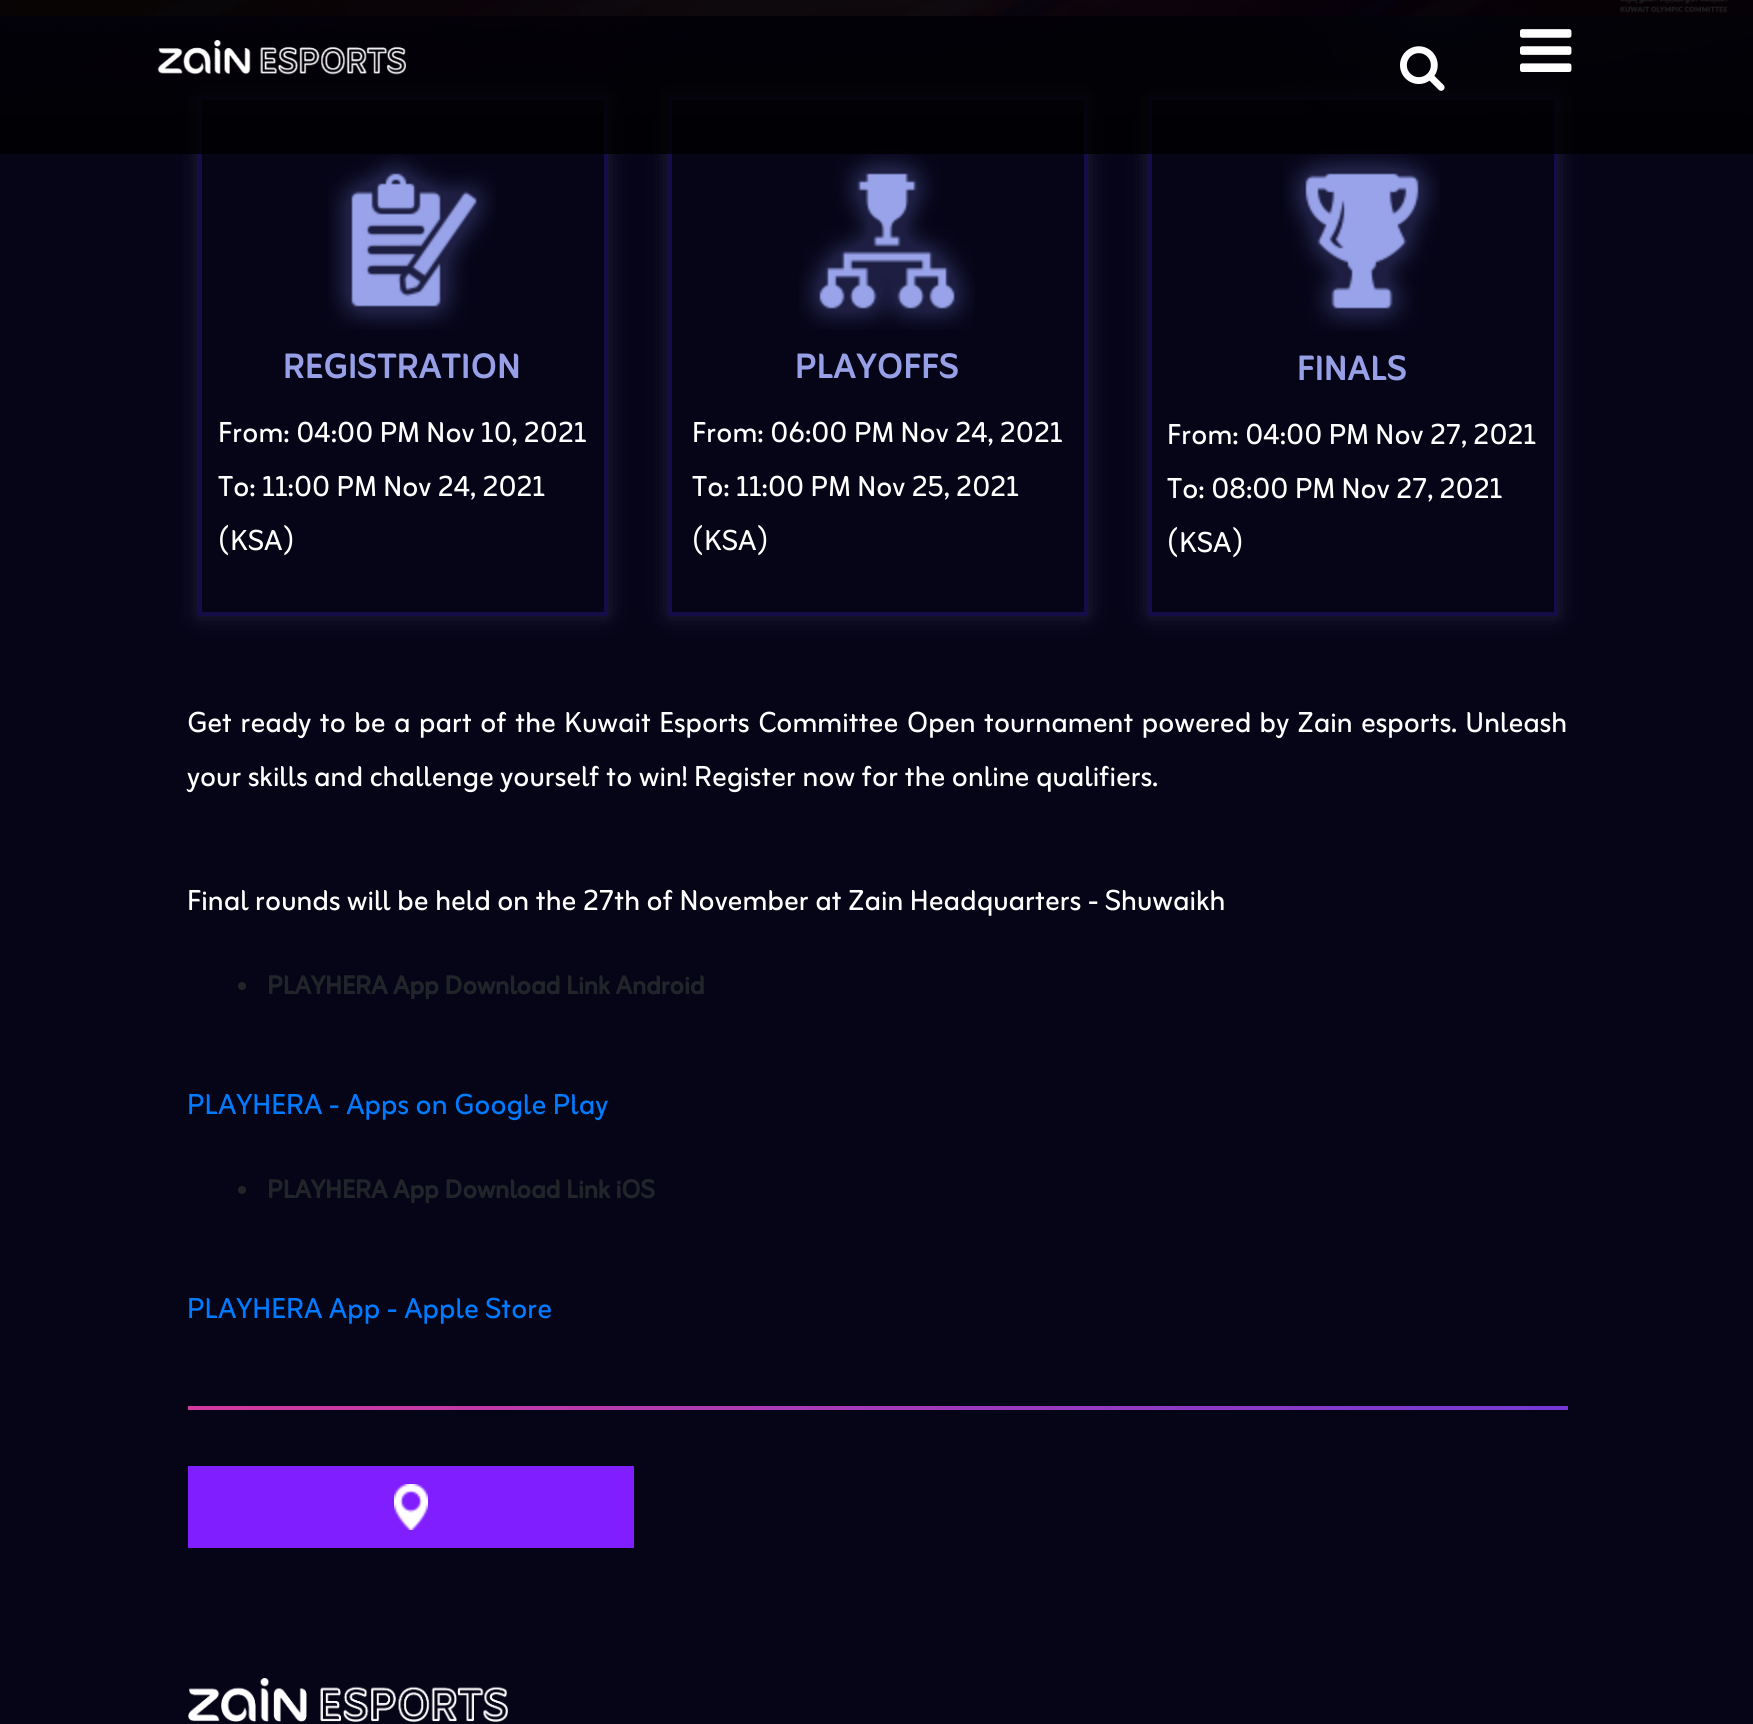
import math
import cairo

surface = cairo.ImageSurface(cairo.FORMAT_RGB24, 1753, 1724)
ctx = cairo.Context(surface)
options = cairo.FontOptions()
options.set_hint_metrics(cairo.HINT_METRICS_OFF)
options.set_hint_style(cairo.HINT_STYLE_NONE)
ctx.set_font_options(options)
ctx.set_miter_limit(4)


def spaced_text(x, y, s, letter, word):
    ctx.move_to(x, y)
    for ch in s:
        ctx.show_text(ch)
        ctx.rel_move_to(letter + word * (ch == ' '), 0)


def round_rect(x, y, w, h, r):
    ctx.new_sub_path()
    for i, (u, v) in enumerate([(x + w - r, y + h - r), (x + r, y + h - r), (x + r, y + r), (x + w - r, y + r)]):
        ctx.arc(u, v, r, i * math.pi / 2, (i + 1) * math.pi / 2)
    ctx.close_path()


def shadow(x, y, w, h, r, blur, alpha):
    ctx.push_group_with_content(cairo.CONTENT_ALPHA)
    ctx.set_operator(cairo.OPERATOR_SOURCE)
    for i in range(15, -16, -2):
        e = blur * i / 6
        if min(w, h) + 2 * e > 0:
            ctx.set_source_rgba(0, 0, 0, alpha * math.erfc((i - 1) / 8.5) / 2)
            round_rect(x - e, y - e, w + 2 * e, h + 2 * e, max(0, min(r + e + blur * .6, min(w, h) / 2 + e)))
            ctx.fill()
    ctx.mask(ctx.pop_group())


def picture(path, x, y, w, h):
    ctx.save()
    ctx.set_source_surface(cairo.ImageSurface.create_from_png(path), x, y)
    ctx.rectangle(x, y, w, h)
    ctx.fill()
    ctx.restore()


ctx.set_source_rgb(0.027, 0.016, 0.09)
ctx.paint()
picture("img1.png", 0, 16, 1753, 98)
picture("img2.png", 0, 0, 1753, 16)
ctx.save()
ctx.set_fill_rule(cairo.FILL_RULE_EVEN_ODD)
ctx.new_path()
ctx.move_to(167, 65)
ctx.line_to(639, 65)
ctx.line_to(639, 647)
ctx.line_to(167, 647)
ctx.close_path()
ctx.move_to(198, 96)
ctx.line_to(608, 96)
ctx.line_to(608, 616)
ctx.line_to(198, 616)
ctx.close_path()
ctx.clip()
ctx.set_source_rgb(0.6, 0.639, 0.918)
shadow(198, 96, 410, 520, 0, 10, 0.18)
ctx.restore()
ctx.rectangle(200, 98, 406, 516)
ctx.set_source_rgb(0.082, 0.051, 0.282)
ctx.set_line_width(4)
ctx.stroke()
picture("img6.png", 328, 153, 168, 177)
ctx.save()
ctx.set_fill_rule(cairo.FILL_RULE_EVEN_ODD)
ctx.new_path()
ctx.move_to(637, 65)
ctx.line_to(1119, 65)
ctx.line_to(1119, 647)
ctx.line_to(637, 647)
ctx.close_path()
ctx.move_to(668, 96)
ctx.line_to(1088, 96)
ctx.line_to(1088, 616)
ctx.line_to(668, 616)
ctx.close_path()
ctx.clip()
ctx.set_source_rgb(0.6, 0.639, 0.918)
shadow(668, 96, 420, 520, 0, 10, 0.18)
ctx.restore()
ctx.rectangle(670, 98, 416, 516)
ctx.stroke()
picture("img7.png", 799, 150, 176, 180)
ctx.save()
ctx.set_fill_rule(cairo.FILL_RULE_EVEN_ODD)
ctx.new_path()
ctx.move_to(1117, 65)
ctx.line_to(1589, 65)
ctx.line_to(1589, 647)
ctx.line_to(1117, 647)
ctx.close_path()
ctx.move_to(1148, 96)
ctx.line_to(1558, 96)
ctx.line_to(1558, 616)
ctx.line_to(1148, 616)
ctx.close_path()
ctx.clip()
ctx.set_source_rgb(0.6, 0.639, 0.918)
shadow(1148, 96, 410, 520, 0, 10, 0.18)
ctx.restore()
ctx.rectangle(1150, 98, 406, 516)
ctx.stroke()
picture("img8.png", 1283, 150, 157, 182)
ctx.set_source_rgba(0, 0, 0, 0.8)
ctx.rectangle(0, 0, 1753, 154)
ctx.fill()
picture("img3.png", 157, 40, 249, 35)
picture("img4.png", 1400, 46, 45, 45)
picture("img5.png", 1520, 29, 52, 43)
ctx.select_font_face("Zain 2", cairo.FONT_SLANT_NORMAL, cairo.FONT_WEIGHT_BOLD)
ctx.set_font_size(44)
ctx.set_source_rgb(0.592, 0.627, 0.906)
ctx.move_to(283, 378)
ctx.show_text("REGISTRATION")
ctx.select_font_face("Zain")
ctx.set_font_size(36)
ctx.set_source_rgb(1, 1, 1)
ctx.move_to(218, 442)
ctx.show_text("From: 04:00 PM Nov 10, 2021")
ctx.move_to(218, 496)
ctx.show_text("To: 11:00 PM Nov 24, 2021")
ctx.move_to(218, 550)
ctx.show_text("(KSA)")
ctx.select_font_face("Zain 2", cairo.FONT_SLANT_NORMAL, cairo.FONT_WEIGHT_BOLD)
ctx.set_font_size(44)
ctx.set_source_rgb(0.592, 0.627, 0.906)
ctx.move_to(795, 378)
ctx.show_text("PLAYOFFS")
ctx.select_font_face("Zain")
ctx.set_font_size(36)
ctx.set_source_rgb(1, 1, 1)
ctx.move_to(692, 442)
ctx.show_text("From: 06:00 PM Nov 24, 2021")
ctx.move_to(692, 496)
ctx.show_text("To: 11:00 PM Nov 25, 2021")
ctx.move_to(692, 550)
ctx.show_text("(KSA)")
ctx.select_font_face("Zain 2", cairo.FONT_SLANT_NORMAL, cairo.FONT_WEIGHT_BOLD)
ctx.set_font_size(44)
ctx.set_source_rgb(0.592, 0.627, 0.906)
ctx.move_to(1297, 380)
ctx.show_text("FINALS")
ctx.select_font_face("Zain")
ctx.set_font_size(36)
ctx.set_source_rgb(1, 1, 1)
ctx.move_to(1167, 444)
ctx.show_text("From: 04:00 PM Nov 27, 2021")
ctx.move_to(1167, 498)
ctx.show_text("To: 08:00 PM Nov 27, 2021")
ctx.move_to(1167, 552)
ctx.show_text("(KSA)")
spaced_text(187, 732, "Get ready to be a part of the Kuwait Esports Committee Open tournament powered by Zain esports. Unleash", 0, 1.9)
ctx.move_to(187, 786)
ctx.show_text("your skills and challenge yourself to win! Register now for the online qualifiers.")
ctx.move_to(187, 910)
ctx.show_text("Final rounds will be held on the 27th of November at Zain Headquarters - Shuwaikh")
ctx.set_source_rgb(0.129, 0.145, 0.161)
ctx.new_path()
ctx.arc(242, 986, 4, 0, 2 * math.pi)
ctx.fill()
ctx.select_font_face("Zain", cairo.FONT_SLANT_NORMAL, cairo.FONT_WEIGHT_BOLD)
ctx.set_font_size(32)
ctx.move_to(267, 994)
ctx.show_text("PLAYHERA App Download Link Android")
ctx.select_font_face("Zain")
ctx.set_font_size(36)
ctx.set_source_rgb(0, 0.482, 1)
ctx.move_to(187, 1114)
ctx.show_text("PLAYHERA - Apps on Google Play")
ctx.set_source_rgb(0.129, 0.145, 0.161)
ctx.new_path()
ctx.arc(242, 1190, 4, 0, 2 * math.pi)
ctx.fill()
ctx.select_font_face("Zain", cairo.FONT_SLANT_NORMAL, cairo.FONT_WEIGHT_BOLD)
ctx.set_font_size(32)
ctx.move_to(267, 1198)
ctx.show_text("PLAYHERA App Download Link iOS")
ctx.select_font_face("Zain")
ctx.set_font_size(36)
ctx.set_source_rgb(0, 0.482, 1)
ctx.move_to(187, 1318)
ctx.show_text("PLAYHERA App - Apple Store")
gradient = cairo.LinearGradient(1568, 1408, 188, 1408)
gradient.add_color_stop_rgba(0, 0.455, 0.227, 0.835, 1)
gradient.add_color_stop_rgba(1, 0.835, 0.227, 0.616, 1)
ctx.set_source(gradient)
ctx.rectangle(188, 1406, 1380, 4)
ctx.fill()
ctx.set_source_rgb(0.502, 0.118, 1)
ctx.rectangle(188, 1466, 446, 82)
ctx.fill()
picture("img9.png", 394, 1484, 34, 46)
picture("img10.png", 188, 1678, 320, 44)
surface.write_to_png("page.png")
